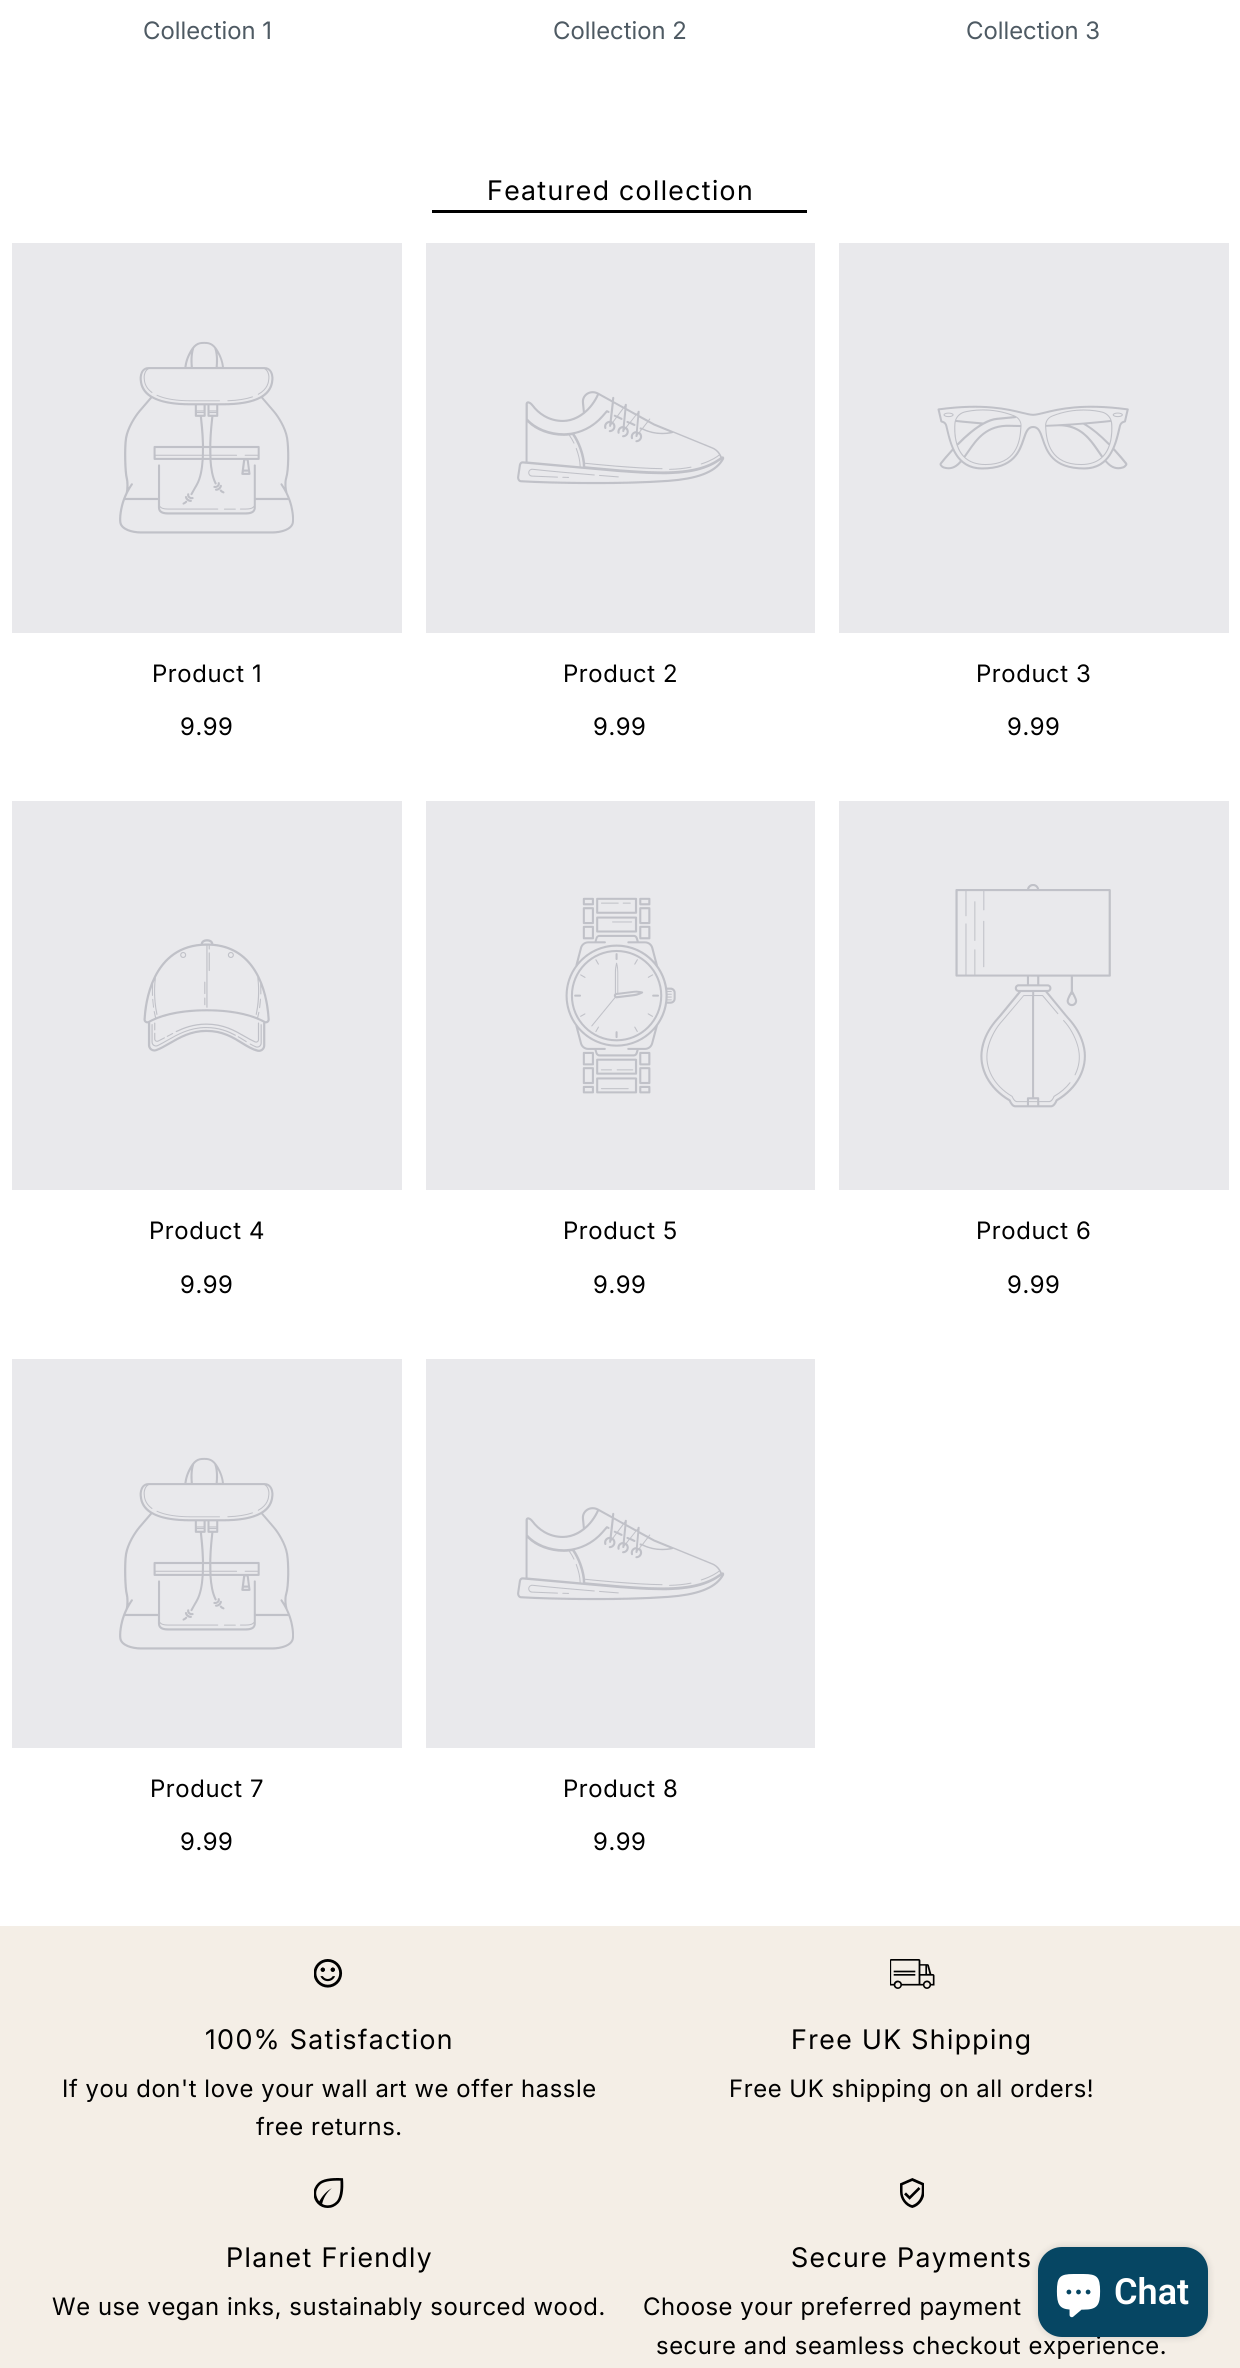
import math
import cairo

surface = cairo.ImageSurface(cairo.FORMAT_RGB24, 1240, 2368)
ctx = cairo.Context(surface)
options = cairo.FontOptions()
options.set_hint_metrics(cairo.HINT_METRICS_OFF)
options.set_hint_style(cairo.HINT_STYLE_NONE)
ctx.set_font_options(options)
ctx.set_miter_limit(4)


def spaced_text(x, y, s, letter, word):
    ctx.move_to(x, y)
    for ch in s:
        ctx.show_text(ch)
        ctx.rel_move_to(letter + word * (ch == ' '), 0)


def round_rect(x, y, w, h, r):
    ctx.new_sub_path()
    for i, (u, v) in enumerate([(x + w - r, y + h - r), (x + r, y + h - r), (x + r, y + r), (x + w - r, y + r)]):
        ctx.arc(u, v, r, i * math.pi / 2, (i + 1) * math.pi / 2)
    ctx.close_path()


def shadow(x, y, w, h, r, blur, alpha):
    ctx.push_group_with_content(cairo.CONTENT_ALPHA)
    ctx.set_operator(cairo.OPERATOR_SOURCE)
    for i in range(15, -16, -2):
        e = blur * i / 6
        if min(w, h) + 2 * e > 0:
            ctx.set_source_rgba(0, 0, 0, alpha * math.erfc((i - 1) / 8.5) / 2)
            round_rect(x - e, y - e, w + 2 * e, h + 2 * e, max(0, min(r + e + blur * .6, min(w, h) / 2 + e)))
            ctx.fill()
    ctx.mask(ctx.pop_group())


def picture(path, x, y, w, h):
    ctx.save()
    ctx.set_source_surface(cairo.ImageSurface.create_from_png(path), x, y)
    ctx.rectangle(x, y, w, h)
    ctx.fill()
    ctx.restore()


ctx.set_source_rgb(1, 1, 1)
ctx.paint()
ctx.select_font_face("Inter")
ctx.set_font_size(24)
ctx.set_source_rgb(0.306, 0.353, 0.388)
ctx.move_to(143, 39)
ctx.show_text("Collection 1")
ctx.move_to(553, 39)
ctx.show_text("Collection 2")
ctx.move_to(966, 39)
ctx.show_text("Collection 3")
ctx.select_font_face("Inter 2")
ctx.set_font_size(27)
ctx.set_source_rgb(0, 0, 0)
spaced_text(487, 200, "Featured collection", 1.4, 0)
ctx.rectangle(432, 210, 375, 3)
ctx.fill()
ctx.set_source_rgb(0.914, 0.914, 0.922)
ctx.rectangle(12, 243, 390, 390)
ctx.fill()
picture("img1.png", 119, 341, 175, 193)
ctx.select_font_face("Inter")
ctx.set_font_size(24)
ctx.set_source_rgb(0, 0, 0)
spaced_text(152, 682, "Product 1", 0.6, 0)
spaced_text(180, 735, "9.99", 0.6, 0)
ctx.set_source_rgb(0.914, 0.914, 0.922)
ctx.rectangle(426, 243, 389, 390)
ctx.fill()
picture("img2.png", 517, 391, 208, 94)
ctx.set_source_rgb(0, 0, 0)
spaced_text(563, 682, "Product 2", 0.6, 0)
spaced_text(593, 735, "9.99", 0.6, 0)
ctx.set_source_rgb(0.914, 0.914, 0.922)
ctx.rectangle(839, 243, 390, 390)
ctx.fill()
picture("img3.png", 937, 405, 192, 65)
ctx.set_source_rgb(0, 0, 0)
spaced_text(976, 682, "Product 3", 0.6, 0)
spaced_text(1007, 735, "9.99", 0.6, 0)
ctx.set_source_rgb(0.914, 0.914, 0.922)
ctx.rectangle(12, 801, 390, 389)
ctx.fill()
picture("img4.png", 143, 939, 127, 113)
ctx.set_source_rgb(0, 0, 0)
spaced_text(149, 1239, "Product 4", 0.6, 0)
spaced_text(180, 1293, "9.99", 0.6, 0)
ctx.set_source_rgb(0.914, 0.914, 0.922)
ctx.rectangle(426, 801, 389, 389)
ctx.fill()
picture("img5.png", 565, 897, 111, 197)
ctx.set_source_rgb(0, 0, 0)
spaced_text(563, 1239, "Product 5", 0.6, 0)
spaced_text(593, 1293, "9.99", 0.6, 0)
ctx.set_source_rgb(0.914, 0.914, 0.922)
ctx.rectangle(839, 801, 390, 389)
ctx.fill()
picture("img6.png", 955, 884, 156, 224)
ctx.set_source_rgb(0, 0, 0)
spaced_text(976, 1239, "Product 6", 0.6, 0)
spaced_text(1007, 1293, "9.99", 0.6, 0)
ctx.set_source_rgb(0.914, 0.914, 0.922)
ctx.rectangle(12, 1359, 390, 389)
ctx.fill()
picture("img1.png", 119, 1457, 175, 193)
ctx.set_source_rgb(0, 0, 0)
spaced_text(150, 1797, "Product 7", 0.6, 0)
spaced_text(180, 1850, "9.99", 0.6, 0)
ctx.set_source_rgb(0.914, 0.914, 0.922)
ctx.rectangle(426, 1359, 389, 389)
ctx.fill()
picture("img2.png", 517, 1507, 208, 94)
ctx.set_source_rgb(0, 0, 0)
spaced_text(563, 1797, "Product 8", 0.6, 0)
spaced_text(593, 1850, "9.99", 0.6, 0)
ctx.set_source_rgb(0.957, 0.933, 0.902)
ctx.rectangle(0, 1926, 1240, 442)
ctx.fill()
picture("img7.png", 314, 1959, 29, 29)
ctx.select_font_face("Inter 2")
ctx.set_font_size(27)
ctx.set_source_rgb(0, 0, 0)
spaced_text(205, 2049, "100% Satisfaction", 1.4, 0)
ctx.select_font_face("Inter")
ctx.set_font_size(24)
spaced_text(62, 2097, "If you don't love your wall art we offer hassle", 0.6, 0)
spaced_text(256, 2135, "free returns.", 0.6, 0)
picture("img8.png", 890, 1959, 45, 30)
ctx.select_font_face("Inter 2")
ctx.set_font_size(27)
spaced_text(791, 2049, "Free UK Shipping", 1.4, 0)
ctx.select_font_face("Inter")
ctx.set_font_size(24)
spaced_text(729, 2097, "Free UK shipping on all orders!", 0.6, 0)
picture("img9.png", 314, 2178, 30, 30)
ctx.select_font_face("Inter 2")
ctx.set_font_size(27)
spaced_text(226, 2267, "Planet Friendly", 1.4, 0)
ctx.select_font_face("Inter")
ctx.set_font_size(24)
spaced_text(52, 2315, "We use vegan inks, sustainably sourced wood.", 0.6, 0)
picture("img10.png", 900, 2178, 24, 30)
ctx.select_font_face("Inter 2")
ctx.set_font_size(27)
spaced_text(791, 2267, "Secure Payments", 1.4, 0)
ctx.select_font_face("Inter")
ctx.set_font_size(24)
spaced_text(643, 2315, "Choose your preferred payment", 0.6, 0)
spaced_text(656, 2354, "secure and seamless checkout experience.", 0.6, 0)
ctx.set_source_rgb(0, 0, 0)
shadow(1038, 2247, 170, 90, 24, 4, 0.15)
ctx.set_source_rgb(0.024, 0.275, 0.388)
round_rect(1038, 2247, 170, 90, 24)
ctx.fill()
picture("img11.png", 1056, 2274, 45, 44)
ctx.select_font_face("Roboto SemiBold")
ctx.set_font_size(36)
ctx.set_source_rgb(1, 1, 1)
ctx.move_to(1114, 2304)
ctx.show_text("Chat")
surface.write_to_png("page.png")
